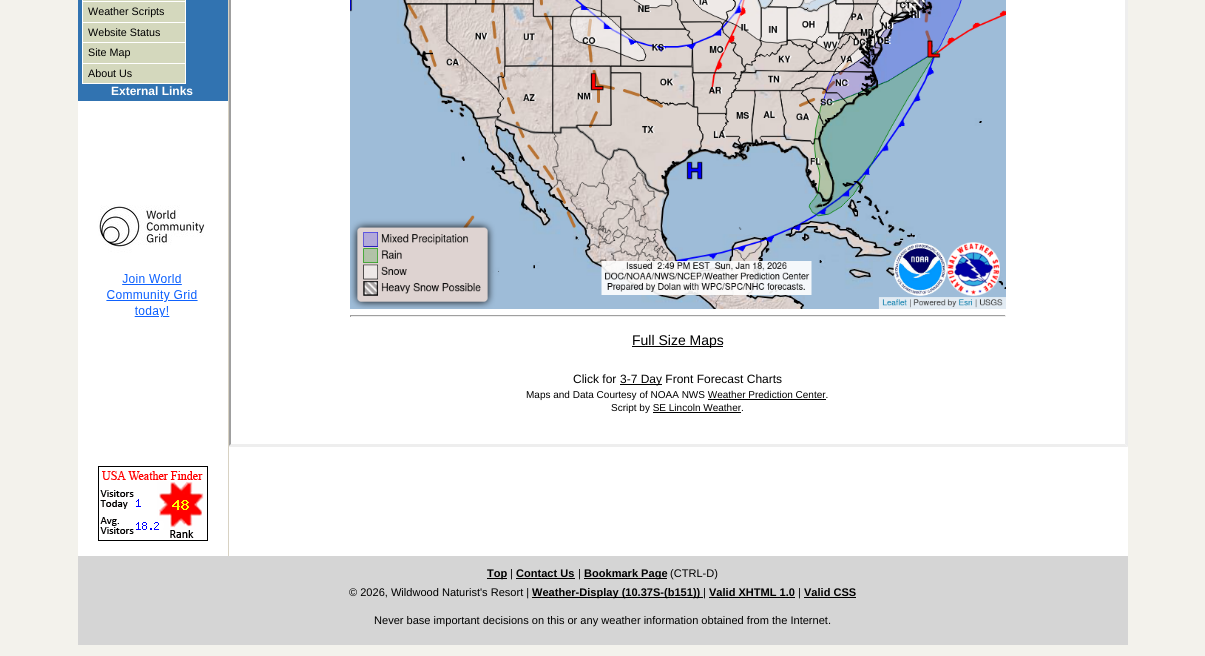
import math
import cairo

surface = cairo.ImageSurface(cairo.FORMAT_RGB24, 1205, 656)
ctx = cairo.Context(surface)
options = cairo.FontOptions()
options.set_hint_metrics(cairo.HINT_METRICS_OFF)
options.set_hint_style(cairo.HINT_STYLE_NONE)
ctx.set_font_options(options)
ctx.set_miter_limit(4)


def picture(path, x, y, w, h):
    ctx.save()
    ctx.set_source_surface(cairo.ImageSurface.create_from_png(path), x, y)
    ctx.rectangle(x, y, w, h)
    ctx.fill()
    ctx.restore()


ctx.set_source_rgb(0.953, 0.949, 0.922)
ctx.paint()
ctx.set_source_rgb(1, 1, 1)
ctx.rectangle(78, 0, 1050, 556)
ctx.fill()
ctx.set_source_rgb(0.933, 0.933, 0.933)
ctx.new_path()
ctx.move_to(1128, -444)
ctx.line_to(1128, 447)
ctx.line_to(1125, 444)
ctx.line_to(1125, -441)
ctx.close_path()
ctx.fill()
ctx.new_path()
ctx.move_to(1128, 447)
ctx.line_to(228, 447)
ctx.line_to(231, 444)
ctx.line_to(1125, 444)
ctx.close_path()
ctx.fill()
ctx.set_source_rgb(0.624, 0.624, 0.624)
ctx.new_path()
ctx.move_to(228, 447)
ctx.line_to(228, -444)
ctx.line_to(231, -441)
ctx.line_to(231, 444)
ctx.close_path()
ctx.fill()
ctx.set_source_rgb(0.847, 0.824, 0.765)
ctx.rectangle(228, 0, 1, 556)
ctx.fill()
ctx.set_source_rgb(0.192, 0.451, 0.694)
ctx.rectangle(78, 0, 150, 101)
ctx.fill()
ctx.set_source_rgb(0.831, 0.847, 0.741)
ctx.rectangle(82, 0, 104, 1)
ctx.fill()
ctx.set_source_rgb(1, 1, 1)
ctx.rectangle(185, 0, 1, 84)
ctx.fill()
ctx.rectangle(82, 1, 104, 1)
ctx.fill()
ctx.rectangle(82, 0, 1, 2)
ctx.fill()
ctx.set_source_rgb(0.831, 0.847, 0.741)
ctx.rectangle(83, 2, 102, 20)
ctx.fill()
ctx.set_source_rgb(1, 1, 1)
ctx.rectangle(82, 22, 104, 1)
ctx.fill()
ctx.rectangle(82, 2, 1, 21)
ctx.fill()
ctx.select_font_face("Liberation Sans")
ctx.set_font_size(10.75)
ctx.set_source_rgb(0, 0, 0)
ctx.move_to(88, 15)
ctx.show_text("Weather Scripts")
ctx.set_source_rgb(0.831, 0.847, 0.741)
ctx.rectangle(83, 23, 102, 19)
ctx.fill()
ctx.set_source_rgb(1, 1, 1)
ctx.rectangle(82, 42, 104, 1)
ctx.fill()
ctx.rectangle(82, 23, 1, 20)
ctx.fill()
ctx.set_source_rgb(0, 0, 0)
ctx.move_to(88, 36)
ctx.show_text("Website Status")
ctx.set_source_rgb(0.831, 0.847, 0.741)
ctx.rectangle(83, 43, 102, 20)
ctx.fill()
ctx.set_source_rgb(1, 1, 1)
ctx.rectangle(82, 63, 104, 1)
ctx.fill()
ctx.rectangle(82, 43, 1, 21)
ctx.fill()
ctx.set_source_rgb(0, 0, 0)
ctx.move_to(88, 56)
ctx.show_text("Site Map")
ctx.set_source_rgb(0.831, 0.847, 0.741)
ctx.rectangle(83, 64, 102, 19)
ctx.fill()
ctx.set_source_rgb(1, 1, 1)
ctx.rectangle(82, 83, 104, 1)
ctx.fill()
ctx.rectangle(82, 64, 1, 20)
ctx.fill()
ctx.set_source_rgb(0, 0, 0)
ctx.move_to(88, 77)
ctx.show_text("About Us")
ctx.select_font_face("Liberation Sans", cairo.FONT_SLANT_NORMAL, cairo.FONT_WEIGHT_BOLD)
ctx.set_font_size(12)
ctx.set_source_rgb(1, 1, 1)
ctx.move_to(111, 95)
ctx.show_text("External Links")
picture("img1.png", 98, 205, 107, 112)
picture("img2.png", 98, 466, 110, 75)
picture("img3.png", 350, 0, 656, 309)
ctx.set_source_rgb(0.624, 0.624, 0.624)
ctx.rectangle(350, 315, 656, 1)
ctx.fill()
ctx.set_source_rgb(0.933, 0.933, 0.933)
ctx.rectangle(1005, 315, 1, 2)
ctx.fill()
ctx.rectangle(350, 316, 656, 1)
ctx.fill()
ctx.set_source_rgb(0.624, 0.624, 0.624)
ctx.rectangle(350, 315, 1, 2)
ctx.fill()
ctx.set_source_rgb(0, 0, 0)
ctx.rectangle(632, 346, 91, 1)
ctx.fill()
ctx.select_font_face("Liberation Sans")
ctx.set_font_size(14)
ctx.move_to(632, 345)
ctx.show_text("Full Size Maps")
ctx.set_font_size(12)
ctx.move_to(573, 383)
ctx.show_text("Click for")
ctx.rectangle(620, 384, 42, 1)
ctx.fill()
ctx.move_to(620, 383)
ctx.show_text("3-7 Day Front Forecast Charts")
ctx.set_font_size(10)
ctx.move_to(526, 398)
ctx.show_text("Maps and Data Courtesy of NOAA NWS Weather Prediction Center.")
ctx.rectangle(708, 399, 118, 1)
ctx.fill()
ctx.move_to(611, 411)
ctx.show_text("Script by SE Lincoln Weather.")
ctx.rectangle(653, 412, 88, 1)
ctx.fill()
ctx.set_source_rgb(0.835, 0.835, 0.835)
ctx.rectangle(78, 556, 1050, 89)
ctx.fill()
ctx.set_source_rgb(0, 0, 0)
ctx.rectangle(487, 578, 20, 1)
ctx.fill()
ctx.select_font_face("Liberation Sans", cairo.FONT_SLANT_NORMAL, cairo.FONT_WEIGHT_BOLD)
ctx.set_font_size(11.05)
ctx.move_to(487, 577)
ctx.show_text("Top")
ctx.select_font_face("Liberation Sans")
ctx.move_to(510, 577)
ctx.show_text("|")
ctx.select_font_face("Liberation Sans", cairo.FONT_SLANT_NORMAL, cairo.FONT_WEIGHT_BOLD)
ctx.move_to(516, 577)
ctx.show_text("Contact Us")
ctx.rectangle(516, 578, 59, 1)
ctx.fill()
ctx.select_font_face("Liberation Sans")
ctx.move_to(578, 577)
ctx.show_text("|")
ctx.rectangle(584, 578, 83, 1)
ctx.fill()
ctx.select_font_face("Liberation Sans", cairo.FONT_SLANT_NORMAL, cairo.FONT_WEIGHT_BOLD)
ctx.move_to(584, 577)
ctx.show_text("Bookmark Page")
ctx.select_font_face("Liberation Sans")
ctx.move_to(670, 577)
ctx.show_text("(CTRL-D)")
ctx.move_to(349, 596)
ctx.show_text("© 2026, Wildwood Naturist's Resort |")
ctx.rectangle(532, 597, 171, 1)
ctx.fill()
ctx.select_font_face("Liberation Sans", cairo.FONT_SLANT_NORMAL, cairo.FONT_WEIGHT_BOLD)
ctx.move_to(532, 596)
ctx.show_text("Weather-Display (10.37S-(b151))")
ctx.select_font_face("Liberation Sans")
ctx.move_to(703, 596)
ctx.show_text("|")
ctx.select_font_face("Liberation Sans", cairo.FONT_SLANT_NORMAL, cairo.FONT_WEIGHT_BOLD)
ctx.move_to(709, 596)
ctx.show_text("Valid XHTML 1.0")
ctx.rectangle(709, 597, 86, 1)
ctx.fill()
ctx.select_font_face("Liberation Sans")
ctx.move_to(798, 596)
ctx.show_text("|")
ctx.select_font_face("Liberation Sans", cairo.FONT_SLANT_NORMAL, cairo.FONT_WEIGHT_BOLD)
ctx.move_to(804, 596)
ctx.show_text("Valid CSS")
ctx.rectangle(804, 597, 52, 1)
ctx.fill()
ctx.select_font_face("Liberation Sans")
ctx.move_to(374, 624)
ctx.show_text("Never base important decisions on this or any weather information obtained from the Internet.")
surface.write_to_png("page.png")
